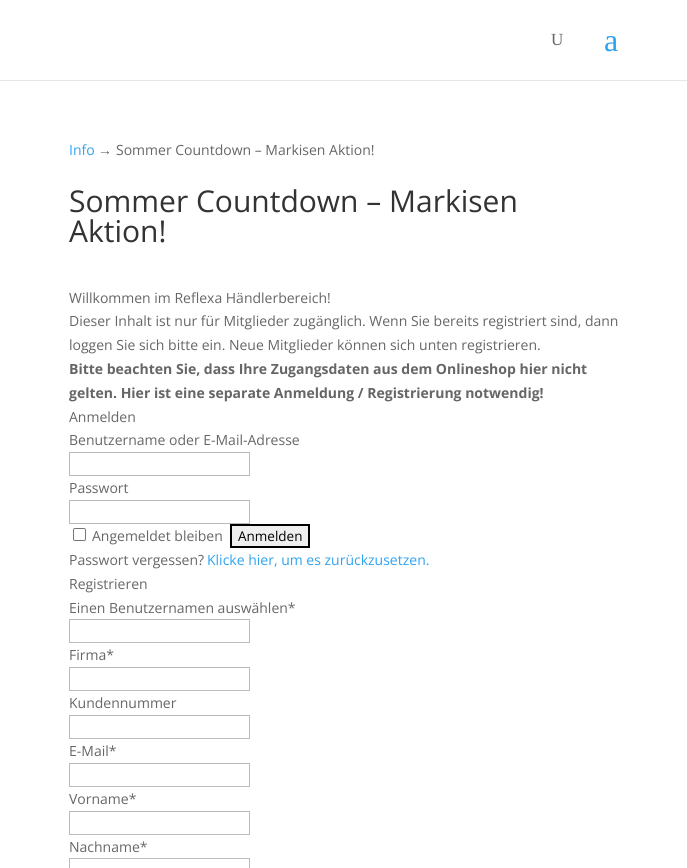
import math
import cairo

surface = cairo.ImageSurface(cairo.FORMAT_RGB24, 687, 868)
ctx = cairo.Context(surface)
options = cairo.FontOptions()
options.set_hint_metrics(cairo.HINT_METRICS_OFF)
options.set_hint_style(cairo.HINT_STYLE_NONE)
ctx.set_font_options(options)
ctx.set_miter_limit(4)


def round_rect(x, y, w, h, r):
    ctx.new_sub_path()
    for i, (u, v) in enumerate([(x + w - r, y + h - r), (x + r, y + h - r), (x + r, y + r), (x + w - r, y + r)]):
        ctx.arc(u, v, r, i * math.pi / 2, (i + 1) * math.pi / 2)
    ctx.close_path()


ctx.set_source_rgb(1, 1, 1)
ctx.paint()
ctx.set_source_rgb(0.902, 0.902, 0.902)
ctx.rectangle(0, 80, 687, 1)
ctx.fill()
ctx.select_font_face("Liberation Serif")
ctx.set_font_size(17)
ctx.set_source_rgb(0.4, 0.4, 0.4)
ctx.move_to(551, 45)
ctx.show_text("U")
ctx.set_font_size(32)
ctx.set_source_rgb(0.18, 0.639, 0.949)
ctx.move_to(604, 51)
ctx.show_text("a")
ctx.select_font_face("Open Sans")
ctx.set_font_size(14)
ctx.move_to(69, 155)
ctx.show_text("Info")
ctx.select_font_face("Liberation Sans")
ctx.set_source_rgb(0.4, 0.4, 0.4)
ctx.move_to(98, 155)
ctx.show_text("→")
ctx.select_font_face("Open Sans")
ctx.move_to(116, 155)
ctx.show_text("Sommer Countdown – Markisen Aktion!")
ctx.set_font_size(30)
ctx.set_source_rgb(0.2, 0.2, 0.2)
ctx.move_to(69, 212)
ctx.show_text("Sommer Countdown – Markisen")
ctx.move_to(69, 242)
ctx.show_text("Aktion!")
ctx.set_font_size(14)
ctx.set_source_rgb(0.4, 0.4, 0.4)
ctx.move_to(69, 303)
ctx.show_text("Willkommen im Reflexa Händlerbereich!")
ctx.move_to(69, 326)
ctx.show_text("Dieser Inhalt ist nur für Mitglieder zugänglich. Wenn Sie bereits registriert sind, dann")
ctx.move_to(69, 350)
ctx.show_text("loggen Sie sich bitte ein. Neue Mitglieder können sich unten registrieren.")
ctx.select_font_face("Open Sans", cairo.FONT_SLANT_NORMAL, cairo.FONT_WEIGHT_BOLD)
ctx.move_to(69, 374)
ctx.show_text("Bitte beachten Sie, dass Ihre Zugangsdaten aus dem Onlineshop hier nicht")
ctx.move_to(69, 398)
ctx.show_text("gelten. Hier ist eine separate Anmeldung / Registrierung notwendig!")
ctx.select_font_face("Open Sans")
ctx.move_to(69, 422)
ctx.show_text("Anmelden")
ctx.move_to(69, 445)
ctx.show_text("Benutzername oder E-Mail-Adresse")
ctx.rectangle(69.5, 452.5, 180, 23)
ctx.set_source_rgb(0.733, 0.733, 0.733)
ctx.set_line_width(1)
ctx.stroke()
ctx.set_source_rgb(0.4, 0.4, 0.4)
ctx.move_to(69, 493)
ctx.show_text("Passwort")
ctx.rectangle(69.5, 500.5, 180, 23)
ctx.set_source_rgb(0.733, 0.733, 0.733)
ctx.stroke()
round_rect(73.5, 528.5, 12, 12, 1.5)
ctx.set_source_rgb(0.463, 0.463, 0.463)
ctx.stroke()
ctx.set_source_rgb(0.4, 0.4, 0.4)
ctx.move_to(92, 541)
ctx.show_text("Angemeldet bleiben")
ctx.set_source_rgb(0.937, 0.937, 0.937)
ctx.rectangle(231, 525, 78, 22)
ctx.fill_preserve()
ctx.set_source_rgb(0, 0, 0)
ctx.set_line_width(2)
ctx.stroke()
ctx.set_font_size(13.5)
ctx.move_to(238, 541)
ctx.show_text("Anmelden")
ctx.set_font_size(14)
ctx.set_source_rgb(0.4, 0.4, 0.4)
ctx.move_to(69, 565)
ctx.show_text("Passwort vergessen?")
ctx.set_source_rgb(0.18, 0.639, 0.949)
ctx.move_to(207, 565)
ctx.show_text("Klicke hier, um es zurückzusetzen.")
ctx.set_source_rgb(0.4, 0.4, 0.4)
ctx.move_to(69, 589)
ctx.show_text("Registrieren")
ctx.move_to(69, 613)
ctx.show_text("Einen Benutzernamen auswählen*")
ctx.rectangle(69.5, 619.5, 180, 23)
ctx.set_source_rgb(0.733, 0.733, 0.733)
ctx.set_line_width(1)
ctx.stroke()
ctx.set_source_rgb(0.4, 0.4, 0.4)
ctx.move_to(69, 660)
ctx.show_text("Firma*")
ctx.rectangle(69.5, 667.5, 180, 23)
ctx.set_source_rgb(0.733, 0.733, 0.733)
ctx.stroke()
ctx.set_source_rgb(0.4, 0.4, 0.4)
ctx.move_to(69, 708)
ctx.show_text("Kundennummer")
ctx.rectangle(69.5, 715.5, 180, 23)
ctx.set_source_rgb(0.733, 0.733, 0.733)
ctx.stroke()
ctx.set_source_rgb(0.4, 0.4, 0.4)
ctx.move_to(69, 756)
ctx.show_text("E-Mail*")
ctx.rectangle(69.5, 763.5, 180, 23)
ctx.set_source_rgb(0.733, 0.733, 0.733)
ctx.stroke()
ctx.set_source_rgb(0.4, 0.4, 0.4)
ctx.move_to(69, 804)
ctx.show_text("Vorname*")
ctx.rectangle(69.5, 811.5, 180, 23)
ctx.set_source_rgb(0.733, 0.733, 0.733)
ctx.stroke()
ctx.set_source_rgb(0.4, 0.4, 0.4)
ctx.move_to(69, 852)
ctx.show_text("Nachname*")
ctx.rectangle(69.5, 858.5, 180, 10)
ctx.set_source_rgb(0.733, 0.733, 0.733)
ctx.stroke()
surface.write_to_png("page.png")
